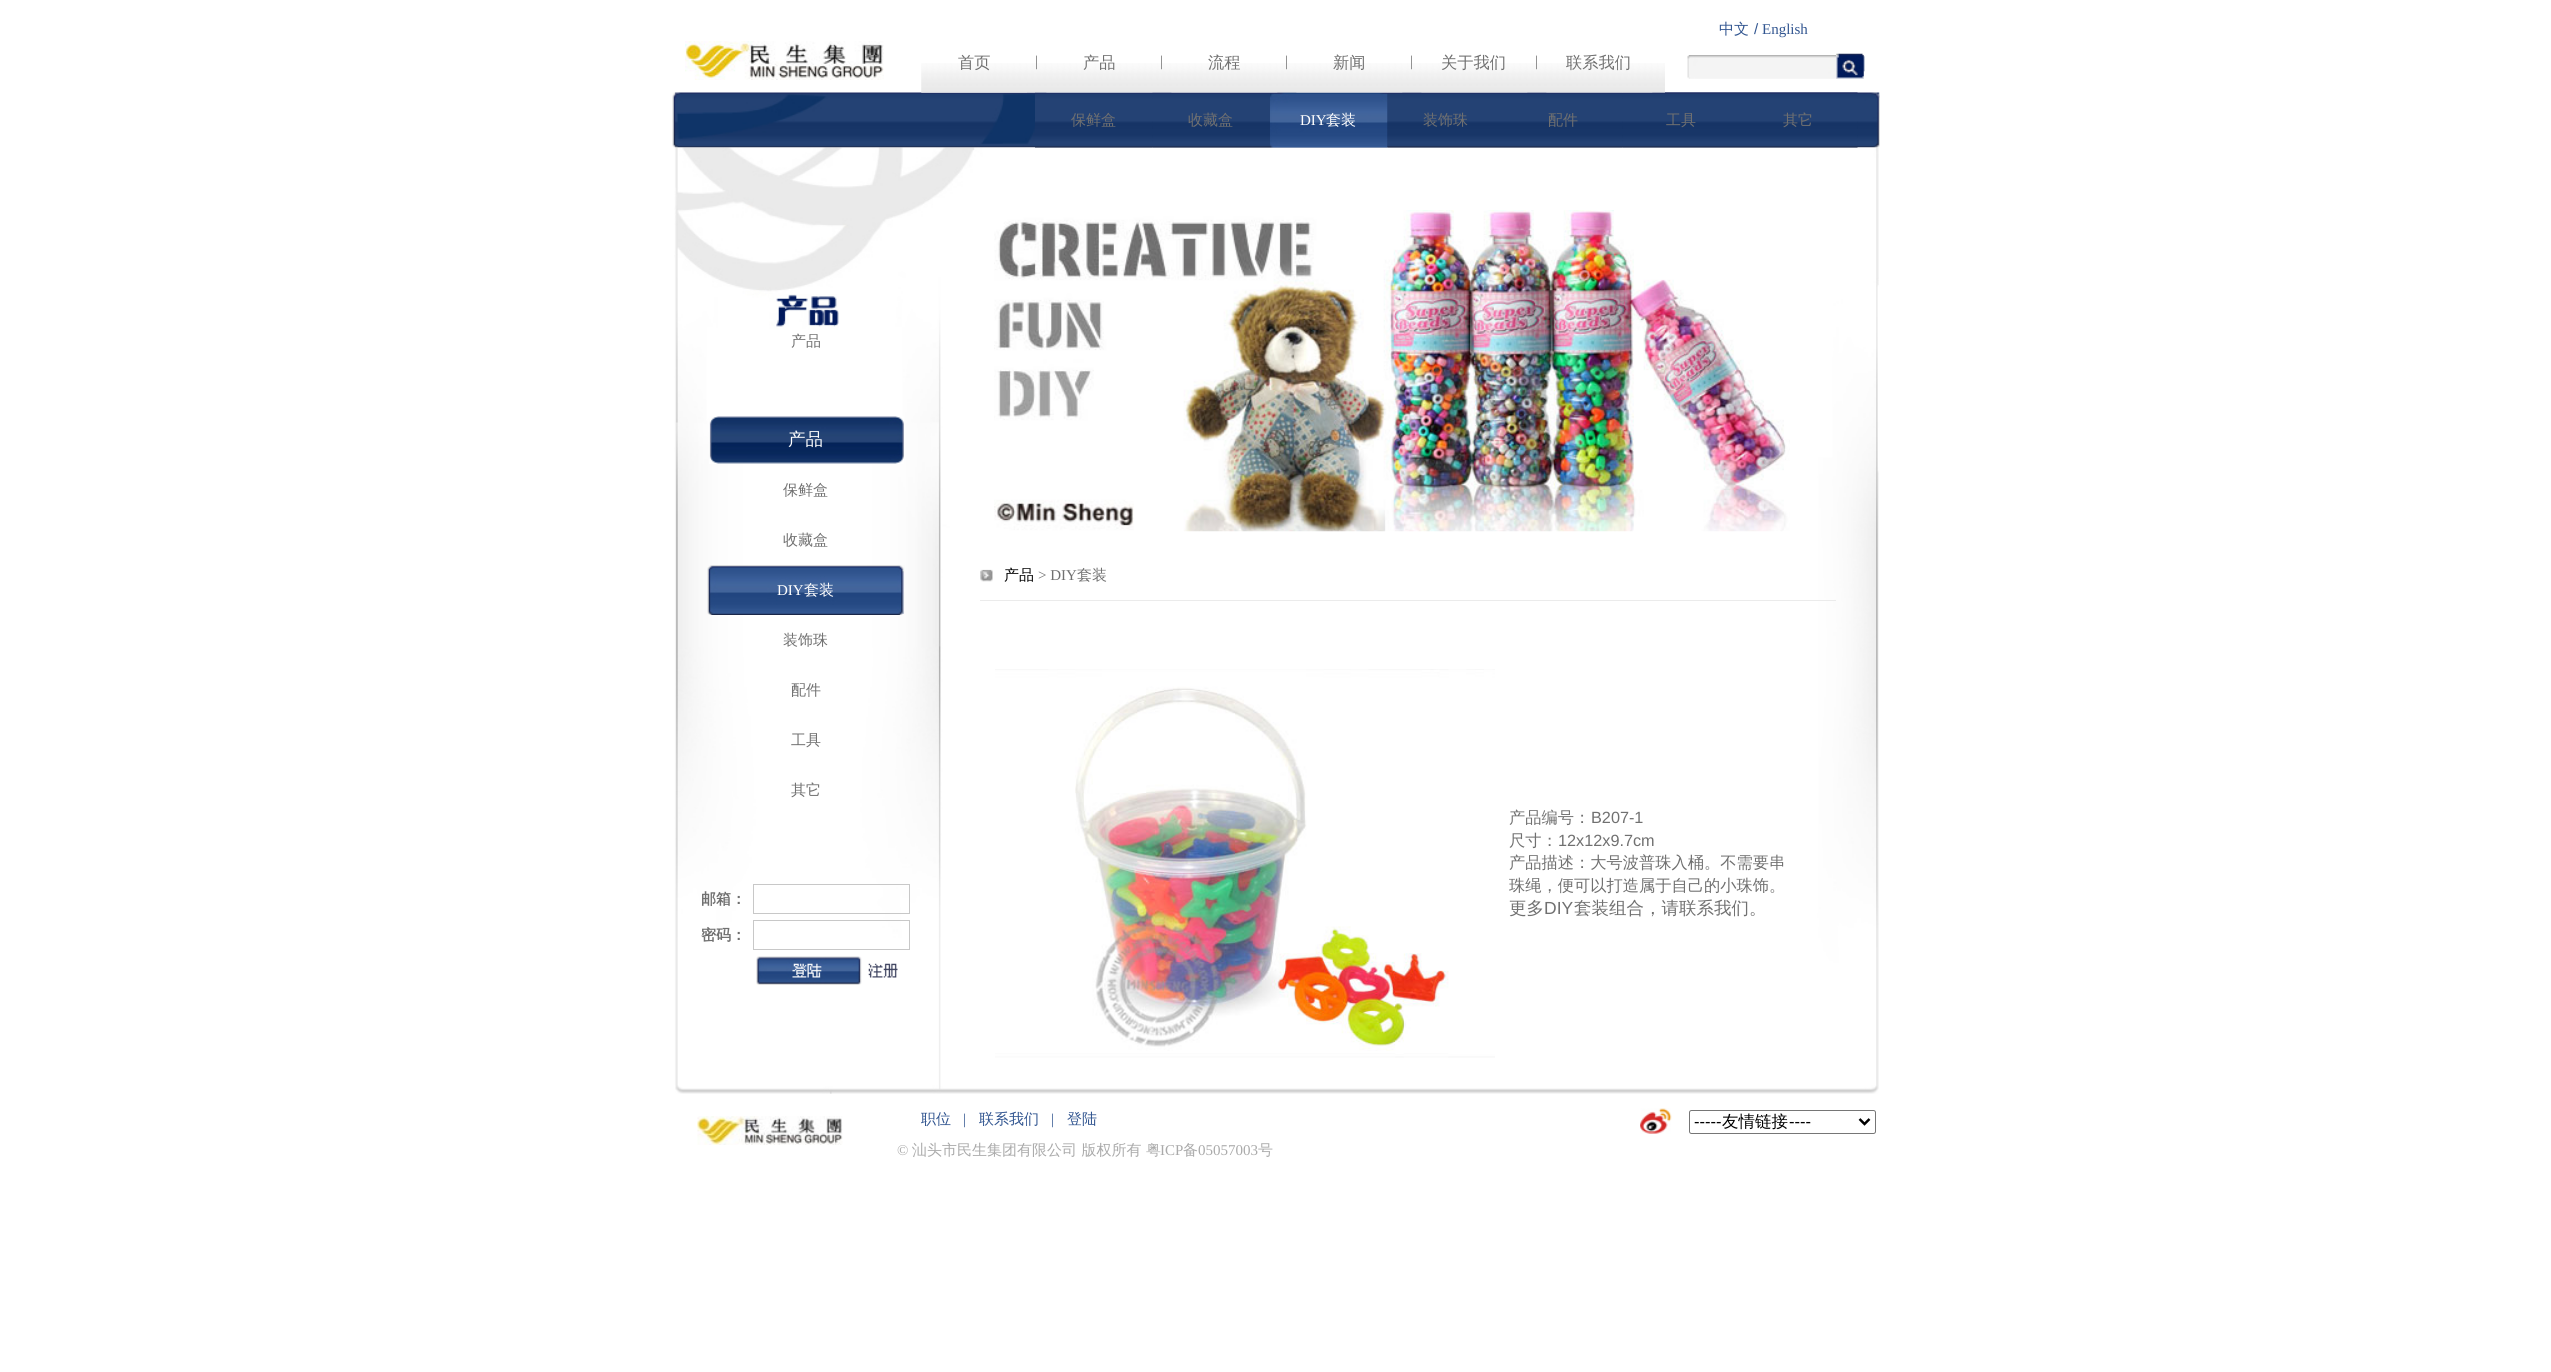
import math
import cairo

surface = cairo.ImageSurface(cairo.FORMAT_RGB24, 2551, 1372)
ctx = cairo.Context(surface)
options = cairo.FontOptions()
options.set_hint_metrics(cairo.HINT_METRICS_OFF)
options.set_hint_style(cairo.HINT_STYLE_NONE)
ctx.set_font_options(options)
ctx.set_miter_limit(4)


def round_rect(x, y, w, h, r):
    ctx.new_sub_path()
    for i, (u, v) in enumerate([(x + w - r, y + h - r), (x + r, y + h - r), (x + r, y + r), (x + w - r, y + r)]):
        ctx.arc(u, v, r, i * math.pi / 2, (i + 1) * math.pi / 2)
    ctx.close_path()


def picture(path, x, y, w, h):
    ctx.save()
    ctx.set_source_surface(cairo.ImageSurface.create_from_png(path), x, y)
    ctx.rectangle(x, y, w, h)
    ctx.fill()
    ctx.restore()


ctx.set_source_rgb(1, 1, 1)
ctx.paint()
ctx.select_font_face("WenQuanYi Zen Hei Medium")
ctx.set_font_size(15)
ctx.set_source_rgb(0.192, 0.333, 0.565)
ctx.move_to(1719, 34)
ctx.show_text("中文")
ctx.select_font_face("Liberation Sans")
ctx.move_to(1754, 34)
ctx.show_text("/")
ctx.select_font_face("Liberation Serif")
ctx.move_to(1762, 34)
ctx.show_text("English")
picture("img1.png", 685, 41, 199, 39)
picture("img11.png", 672, 92, 1208, 56)
picture("img17.png", 674, 147, 1205, 938)
picture("img12.png", 1035, 92, 118, 56)
picture("img13.png", 1152, 92, 118, 56)
picture("img14.png", 1270, 92, 118, 56)
picture("img15.png", 1387, 92, 118, 56)
picture("img16.png", 1505, 92, 118, 56)
picture("img13.png", 1622, 92, 118, 56)
picture("img2.png", 921, 63, 744, 30)
picture("img3.png", 921, 92, 106, 1)
ctx.select_font_face("WenQuanYi Zen Hei Medium")
ctx.set_font_size(16.25)
ctx.set_source_rgb(0.439, 0.439, 0.439)
ctx.move_to(958, 68)
ctx.show_text("首页")
ctx.select_font_face("Liberation Serif")
ctx.set_font_size(15)
ctx.move_to(1035, 66)
ctx.show_text("|")
picture("img4.png", 1046, 92, 107, 1)
ctx.select_font_face("WenQuanYi Zen Hei Medium")
ctx.set_font_size(16.25)
ctx.move_to(1083, 68)
ctx.show_text("产品")
ctx.select_font_face("Liberation Serif")
ctx.set_font_size(15)
ctx.move_to(1160, 66)
ctx.show_text("|")
picture("img5.png", 1171, 92, 107, 1)
ctx.select_font_face("WenQuanYi Zen Hei Medium")
ctx.set_font_size(16.25)
ctx.move_to(1208, 68)
ctx.show_text("流程")
ctx.select_font_face("Liberation Serif")
ctx.set_font_size(15)
ctx.move_to(1285, 66)
ctx.show_text("|")
picture("img6.png", 1296, 92, 107, 1)
ctx.select_font_face("WenQuanYi Zen Hei Medium")
ctx.set_font_size(16.25)
ctx.move_to(1333, 68)
ctx.show_text("新闻")
ctx.select_font_face("Liberation Serif")
ctx.set_font_size(15)
ctx.move_to(1410, 66)
ctx.show_text("|")
picture("img7.png", 1421, 92, 107, 1)
ctx.select_font_face("WenQuanYi Zen Hei Medium")
ctx.set_font_size(16.25)
ctx.move_to(1441, 68)
ctx.show_text("关于我们")
ctx.select_font_face("Liberation Serif")
ctx.set_font_size(15)
ctx.move_to(1535, 66)
ctx.show_text("|")
picture("img8.png", 1546, 92, 107, 1)
ctx.select_font_face("WenQuanYi Zen Hei Medium")
ctx.set_font_size(16.25)
ctx.move_to(1566, 68)
ctx.show_text("联系我们")
picture("img9.png", 1687, 55, 150, 24)
picture("img10.png", 1836, 53, 29, 26)
ctx.set_font_size(15)
ctx.move_to(1071, 125)
ctx.show_text("保鲜盒")
ctx.move_to(1188, 125)
ctx.show_text("收藏盒")
ctx.select_font_face("Liberation Serif")
ctx.set_source_rgb(1, 1, 1)
ctx.move_to(1300, 125)
ctx.show_text("DIY")
ctx.select_font_face("WenQuanYi Zen Hei Medium")
ctx.move_to(1326, 125)
ctx.show_text("套装")
ctx.set_source_rgb(0.439, 0.439, 0.439)
ctx.move_to(1423, 125)
ctx.show_text("装饰珠")
ctx.move_to(1548, 125)
ctx.show_text("配件")
ctx.move_to(1666, 125)
ctx.show_text("工具")
picture("img16.png", 1740, 92, 118, 56)
ctx.move_to(1783, 125)
ctx.show_text("其它")
picture("img18.png", 769, 294, 70, 36)
ctx.move_to(791, 346)
ctx.show_text("产品")
picture("img19.png", 709, 416, 195, 48)
ctx.set_font_size(17.5)
ctx.set_source_rgb(1, 1, 1)
ctx.move_to(788, 445)
ctx.show_text("产品")
ctx.set_font_size(15)
ctx.set_source_rgb(0.439, 0.439, 0.439)
ctx.move_to(783, 495)
ctx.show_text("保鲜盒")
ctx.move_to(783, 545)
ctx.show_text("收藏盒")
picture("img20.png", 707, 565, 198, 50)
ctx.select_font_face("Liberation Serif")
ctx.set_source_rgb(1, 1, 1)
ctx.move_to(777, 595)
ctx.show_text("DIY")
ctx.select_font_face("WenQuanYi Zen Hei Medium")
ctx.move_to(804, 595)
ctx.show_text("套装")
ctx.set_source_rgb(0.439, 0.439, 0.439)
ctx.move_to(783, 645)
ctx.show_text("装饰珠")
ctx.move_to(791, 695)
ctx.show_text("配件")
ctx.move_to(791, 745)
ctx.show_text("工具")
ctx.move_to(791, 795)
ctx.show_text("其它")
ctx.select_font_face("WenQuanYi Zen Hei", cairo.FONT_SLANT_NORMAL, cairo.FONT_WEIGHT_BOLD)
ctx.move_to(701, 904)
ctx.show_text("邮箱：")
ctx.rectangle(753.5, 884.5, 156, 29)
ctx.set_source_rgb(0.784, 0.784, 0.784)
ctx.set_line_width(1)
ctx.stroke()
ctx.set_source_rgb(0.439, 0.439, 0.439)
ctx.move_to(701, 940)
ctx.show_text("密码：")
ctx.rectangle(753.5, 920.5, 156, 29)
ctx.set_source_rgb(0.784, 0.784, 0.784)
ctx.stroke()
picture("img21.png", 756, 956, 106, 29)
picture("img22.png", 868, 963, 30, 15)
picture("img23.png", 994, 210, 796, 322)
picture("img24.png", 980, 569, 13, 13)
ctx.set_source_rgb(0.918, 0.918, 0.918)
ctx.rectangle(980, 600, 856, 1)
ctx.fill()
ctx.select_font_face("WenQuanYi Zen Hei Medium")
ctx.set_source_rgb(0, 0, 0)
ctx.move_to(1004, 580)
ctx.show_text("产品")
ctx.select_font_face("Liberation Serif")
ctx.set_source_rgb(0.439, 0.439, 0.439)
ctx.move_to(1038, 580)
ctx.show_text("> DIY")
ctx.select_font_face("WenQuanYi Zen Hei Medium")
ctx.move_to(1077, 580)
ctx.show_text("套装")
picture("img25.png", 995, 669, 500, 389)
ctx.set_font_size(16.25)
ctx.move_to(1509, 823)
ctx.show_text("产品编号：")
ctx.select_font_face("Liberation Sans")
ctx.move_to(1591, 823)
ctx.show_text("B207-1")
ctx.select_font_face("WenQuanYi Zen Hei Medium")
ctx.move_to(1509, 846)
ctx.show_text("尺寸：")
ctx.select_font_face("Liberation Sans")
ctx.move_to(1558, 846)
ctx.show_text("12x12x9.7cm")
ctx.select_font_face("WenQuanYi Zen Hei Medium")
ctx.move_to(1509, 868)
ctx.show_text("产品描述：大号波普珠入桶。不需要串")
ctx.move_to(1509, 891)
ctx.show_text("珠绳，便可以打造属于自己的小珠饰。")
ctx.set_font_size(17.5)
ctx.move_to(1509, 914)
ctx.show_text("更多")
ctx.select_font_face("Liberation Sans")
ctx.move_to(1544, 914)
ctx.show_text("DIY")
ctx.select_font_face("WenQuanYi Zen Hei Medium")
ctx.move_to(1574, 914)
ctx.show_text("套装组合，请联系我们。")
picture("img26.png", 675, 1085, 1204, 9)
picture("img27.png", 697, 1116, 146, 29)
ctx.set_font_size(15)
ctx.set_source_rgb(0.192, 0.333, 0.565)
ctx.move_to(921, 1124)
ctx.show_text("职位")
ctx.select_font_face("Liberation Serif")
ctx.move_to(963, 1124)
ctx.show_text("|")
ctx.select_font_face("WenQuanYi Zen Hei Medium")
ctx.move_to(979, 1124)
ctx.show_text("联系我们")
ctx.select_font_face("Liberation Serif")
ctx.move_to(1051, 1124)
ctx.show_text("|")
ctx.select_font_face("WenQuanYi Zen Hei Medium")
ctx.move_to(1067, 1124)
ctx.show_text("登陆")
ctx.select_font_face("Liberation Serif")
ctx.set_source_rgb(0.667, 0.667, 0.667)
ctx.move_to(897, 1155)
ctx.show_text("©")
ctx.select_font_face("WenQuanYi Zen Hei Medium")
ctx.move_to(912, 1155)
ctx.show_text("汕头市民生集团有限公司 版权所有 粤")
ctx.select_font_face("Liberation Serif")
ctx.move_to(1160, 1155)
ctx.show_text("ICP")
ctx.select_font_face("WenQuanYi Zen Hei Medium")
ctx.move_to(1183, 1155)
ctx.show_text("备")
ctx.select_font_face("Liberation Serif")
ctx.move_to(1198, 1155)
ctx.show_text("05057003")
ctx.select_font_face("WenQuanYi Zen Hei Medium")
ctx.move_to(1258, 1155)
ctx.show_text("号")
picture("img28.png", 1640, 1108, 32, 26)
round_rect(1689.5, 1110.5, 186, 23, 2)
ctx.set_source_rgb(0.463, 0.463, 0.463)
ctx.stroke()
ctx.new_path()
ctx.move_to(1859.5, 1119)
ctx.line_to(1864.5, 1124)
ctx.line_to(1869.5, 1119)
ctx.set_source_rgb(0, 0, 0)
ctx.set_line_width(2.5)
ctx.stroke()
ctx.select_font_face("Liberation Sans")
ctx.set_font_size(16.5)
ctx.move_to(1694, 1127)
ctx.show_text("-----")
ctx.select_font_face("WenQuanYi Zen Hei Medium")
ctx.move_to(1722, 1127)
ctx.show_text("友情链接")
ctx.select_font_face("Liberation Sans")
ctx.move_to(1789, 1127)
ctx.show_text("----")
surface.write_to_png("page.png")
